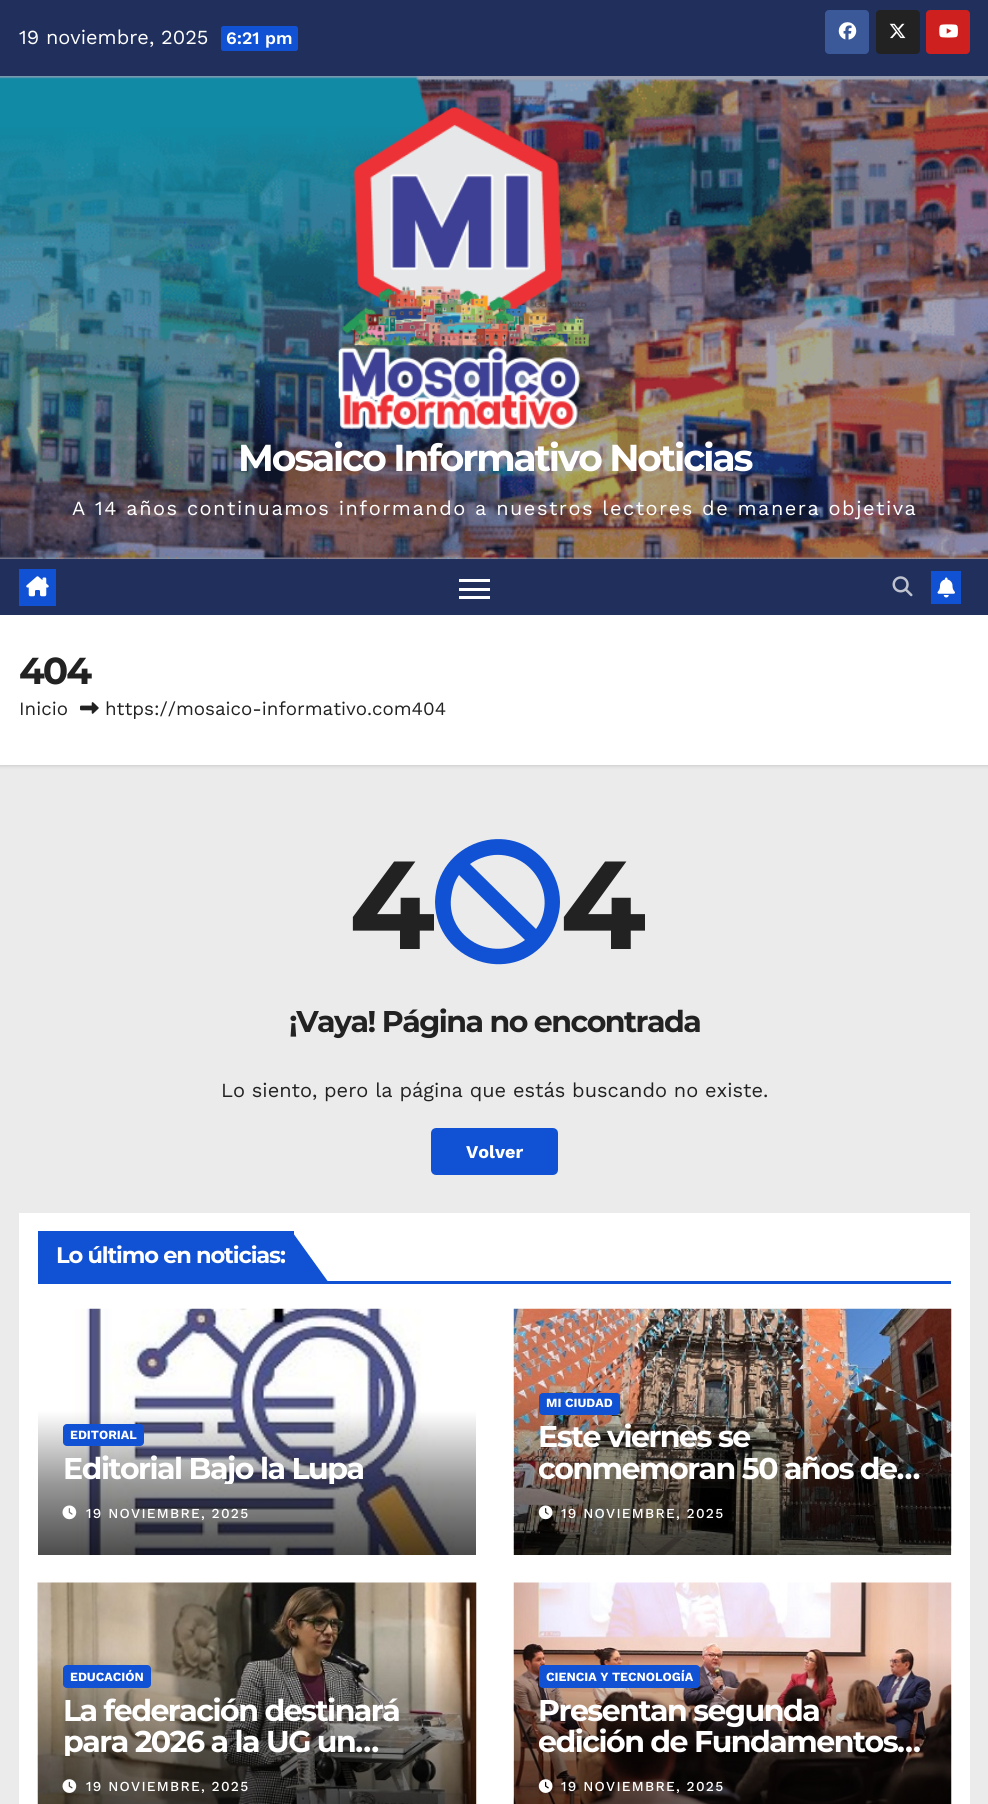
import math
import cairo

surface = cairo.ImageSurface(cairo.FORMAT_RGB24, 988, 1804)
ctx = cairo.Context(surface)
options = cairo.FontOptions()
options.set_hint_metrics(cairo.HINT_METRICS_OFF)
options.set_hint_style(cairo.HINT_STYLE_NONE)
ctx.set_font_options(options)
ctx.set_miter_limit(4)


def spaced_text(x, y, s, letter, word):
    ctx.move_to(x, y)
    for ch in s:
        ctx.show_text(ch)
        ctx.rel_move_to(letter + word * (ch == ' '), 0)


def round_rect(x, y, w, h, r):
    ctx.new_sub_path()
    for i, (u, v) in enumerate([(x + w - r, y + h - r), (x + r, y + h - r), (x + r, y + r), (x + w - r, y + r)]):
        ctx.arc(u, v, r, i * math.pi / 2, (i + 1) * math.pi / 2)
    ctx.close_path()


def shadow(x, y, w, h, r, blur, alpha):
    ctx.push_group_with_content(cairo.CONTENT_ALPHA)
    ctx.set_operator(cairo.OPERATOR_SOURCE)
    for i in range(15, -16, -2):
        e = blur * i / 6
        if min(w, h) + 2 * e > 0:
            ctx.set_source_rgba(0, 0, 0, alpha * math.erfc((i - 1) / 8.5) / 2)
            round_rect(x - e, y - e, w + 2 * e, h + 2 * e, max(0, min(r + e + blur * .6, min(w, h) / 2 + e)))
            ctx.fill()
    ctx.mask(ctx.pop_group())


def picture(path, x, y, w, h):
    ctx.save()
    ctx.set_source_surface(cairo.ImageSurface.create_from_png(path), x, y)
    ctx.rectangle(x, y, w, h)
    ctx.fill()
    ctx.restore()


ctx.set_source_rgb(0.918, 0.918, 0.918)
ctx.paint()
ctx.set_source_rgb(0.6, 0.624, 0.694)
ctx.rectangle(0, 76, 988, 483)
ctx.fill()
ctx.set_source_rgb(0.125, 0.184, 0.357)
ctx.rectangle(0, 0, 988, 76)
ctx.fill()
ctx.select_font_face("Work Sans")
ctx.set_font_size(20)
ctx.set_source_rgb(1, 1, 1)
ctx.move_to(19, 44)
ctx.show_text("19 noviembre, 2025")
ctx.set_source_rgb(0.067, 0.318, 0.827)
round_rect(221, 26, 77, 25, 2.5)
ctx.fill()
ctx.select_font_face("Work Sans SemiBold")
ctx.set_font_size(17.5)
ctx.set_source_rgb(1, 1, 1)
ctx.move_to(226, 44)
ctx.show_text("6:21 pm")
ctx.set_source_rgb(0.231, 0.349, 0.596)
round_rect(825, 10, 44, 44, 4)
ctx.fill()
picture("img1.png", 838, 22, 19, 18)
ctx.set_source_rgb(0.133, 0.133, 0.133)
round_rect(876, 10, 44, 44, 4)
ctx.fill()
picture("img2.png", 889, 23, 17, 16)
ctx.set_source_rgb(0.804, 0.125, 0.122)
round_rect(926, 10, 44, 44, 4)
ctx.fill()
picture("img3.png", 939, 24, 19, 14)
picture("img4.png", 0, 76, 988, 483)
picture("img5.png", 338, 107, 251, 322)
ctx.select_font_face("Montserrat", cairo.FONT_SLANT_NORMAL, cairo.FONT_WEIGHT_BOLD)
ctx.set_font_size(37.5)
ctx.set_source_rgb(1, 1, 1)
spaced_text(238, 471, "Mosaico Informativo Noticias", -2.1, 0)
ctx.select_font_face("Work Sans")
ctx.set_font_size(20)
spaced_text(72, 515, "A 14 años continuamos informando a nuestros lectores de manera objetiva", 1.5, 0)
ctx.set_source_rgb(0, 0, 0)
shadow(0, 616, 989, 150, 0, 2, 0.15)
ctx.set_source_rgb(0.125, 0.184, 0.357)
ctx.rectangle(0, 559, 988, 56)
ctx.fill()
ctx.set_source_rgb(0.067, 0.318, 0.827)
ctx.rectangle(19, 569, 37, 37)
ctx.fill()
picture("img6.png", 26, 576, 23, 21)
ctx.set_source_rgb(1, 1, 1)
ctx.rectangle(459, 579, 31, 3)
ctx.fill()
ctx.rectangle(459, 588, 31, 3)
ctx.fill()
ctx.rectangle(459, 596, 31, 3)
ctx.fill()
picture("img7.png", 892, 576, 21, 21)
ctx.set_source_rgb(0.067, 0.318, 0.827)
ctx.rectangle(931, 571, 30, 33)
ctx.fill()
picture("img8.png", 937, 577, 18, 21)
ctx.set_source_rgb(1, 1, 1)
ctx.rectangle(0, 615, 988, 150)
ctx.fill()
ctx.select_font_face("Montserrat", cairo.FONT_SLANT_NORMAL, cairo.FONT_WEIGHT_BOLD)
ctx.set_font_size(37.5)
ctx.set_source_rgb(0.133, 0.133, 0.133)
spaced_text(19, 684, "404", -2, 0)
ctx.select_font_face("Work Sans")
ctx.set_font_size(18.75)
ctx.move_to(19, 715)
ctx.show_text("Inicio")
picture("img9.png", 80, 702, 19, 12)
ctx.move_to(105, 715)
ctx.show_text("https://mosaico-informativo.com404")
ctx.select_font_face("Montserrat", cairo.FONT_SLANT_NORMAL, cairo.FONT_WEIGHT_BOLD)
ctx.set_font_size(125)
spaced_text(349, 949, "4", -6, 0)
ctx.set_source_rgb(0.067, 0.318, 0.827)
ctx.new_path()
ctx.move_to(525, 940)
ctx.line_to(459, 875)
ctx.curve_to(454, 882, 452, 890, 451, 898)
ctx.curve_to(447, 938, 493, 963, 525, 940)
ctx.close_path()
ctx.move_to(536, 929)
ctx.curve_to(559, 897, 533, 852, 494, 855)
ctx.curve_to(485, 856, 477, 859, 470, 864)
ctx.close_path()
ctx.move_to(435, 902)
ctx.curve_to(436, 842, 511, 816, 547, 864)
ctx.curve_to(555, 875, 560, 888, 560, 902)
ctx.curve_to(560, 915, 555, 929, 547, 940)
ctx.curve_to(511, 987, 436, 961, 435, 902)
ctx.close_path()
ctx.fill()
ctx.set_source_rgb(0.133, 0.133, 0.133)
spaced_text(560, 949, "4", -6, 0)
ctx.set_font_size(30)
spaced_text(289, 1032, "¡Vaya! Página no encontrada", -1.5, 0)
ctx.select_font_face("Work Sans")
ctx.set_font_size(20)
ctx.move_to(221, 1097)
ctx.show_text("Lo siento, pero la página que estás buscando no existe.")
ctx.set_source_rgb(0.067, 0.318, 0.827)
round_rect(432.5, 1129.5, 124, 44, 3.5)
ctx.fill_preserve()
ctx.set_line_width(3)
ctx.stroke()
ctx.select_font_face("Work Sans", cairo.FONT_SLANT_NORMAL, cairo.FONT_WEIGHT_BOLD)
ctx.set_font_size(18)
ctx.set_source_rgb(1, 1, 1)
ctx.move_to(466, 1158)
ctx.show_text("Volver")
ctx.rectangle(19, 1213, 951, 591)
ctx.fill()
ctx.set_source_rgb(0.067, 0.318, 0.827)
ctx.rectangle(38, 1281, 913, 3)
ctx.fill()
ctx.rectangle(38, 1231, 256, 50)
ctx.fill()
ctx.select_font_face("Montserrat", cairo.FONT_SLANT_NORMAL, cairo.FONT_WEIGHT_BOLD)
ctx.set_font_size(22.5)
ctx.set_source_rgb(1, 1, 1)
spaced_text(56, 1263, "Lo último en noticias:", -1.1, 0)
ctx.set_source_rgb(0.067, 0.318, 0.827)
ctx.new_path()
ctx.move_to(293, 1283)
ctx.line_to(293, 1233)
ctx.line_to(329, 1283)
ctx.close_path()
ctx.fill()
picture("img10.png", 38, 1308, 438, 247)
round_rect(63, 1424, 81, 22, 4)
ctx.fill()
ctx.select_font_face("Work Sans", cairo.FONT_SLANT_NORMAL, cairo.FONT_WEIGHT_BOLD)
ctx.set_font_size(12.5)
ctx.set_source_rgb(1, 1, 1)
ctx.move_to(70, 1439)
ctx.show_text("EDITORIAL")
ctx.save()
ctx.rectangle(63, 1453, 388, 31)
ctx.clip()
ctx.select_font_face("Montserrat", cairo.FONT_SLANT_NORMAL, cairo.FONT_WEIGHT_BOLD)
ctx.set_font_size(30)
spaced_text(63, 1479, "Editorial Bajo la Lupa", -1.5, 0)
ctx.restore()
picture("img11.png", 62, 1505, 15, 15)
ctx.select_font_face("Work Sans Medium")
ctx.set_font_size(13.75)
spaced_text(86, 1518, "19 NOVIEMBRE, 2025", 1.25, 0)
picture("img12.png", 513, 1308, 439, 247)
ctx.set_source_rgb(0.067, 0.318, 0.827)
round_rect(539, 1393, 81, 22, 4)
ctx.fill()
ctx.select_font_face("Work Sans", cairo.FONT_SLANT_NORMAL, cairo.FONT_WEIGHT_BOLD)
ctx.set_font_size(12.5)
ctx.set_source_rgb(1, 1, 1)
ctx.move_to(546, 1407)
ctx.show_text("MI CIUDAD")
ctx.select_font_face("Montserrat", cairo.FONT_SLANT_NORMAL, cairo.FONT_WEIGHT_BOLD)
ctx.set_font_size(30)
spaced_text(538, 1447, "Este viernes se", -1.5, 0)
spaced_text(538, 1479, "conmemoran 50 años de…", -1.5, 0)
picture("img13.png", 538, 1505, 15, 15)
ctx.select_font_face("Work Sans Medium")
ctx.set_font_size(13.75)
spaced_text(561, 1518, "19 NOVIEMBRE, 2025", 1.25, 0)
picture("img14.png", 37, 1582, 440, 222)
ctx.set_source_rgb(0.067, 0.318, 0.827)
round_rect(63, 1665, 88, 23, 4)
ctx.fill()
ctx.select_font_face("Work Sans", cairo.FONT_SLANT_NORMAL, cairo.FONT_WEIGHT_BOLD)
ctx.set_font_size(12.5)
ctx.set_source_rgb(1, 1, 1)
ctx.move_to(70, 1681)
ctx.show_text("EDUCACIÓN")
ctx.select_font_face("Montserrat", cairo.FONT_SLANT_NORMAL, cairo.FONT_WEIGHT_BOLD)
ctx.set_font_size(30)
spaced_text(63, 1721, "La federación destinará", -1.5, 0)
ctx.save()
ctx.rectangle(63, 1694, 388, 62)
ctx.clip()
spaced_text(63, 1752, "para 2026 a la UG un…", -1.5, 0)
ctx.restore()
picture("img15.png", 62, 1779, 15, 14)
ctx.select_font_face("Work Sans Medium")
ctx.set_font_size(13.75)
spaced_text(86, 1791, "19 NOVIEMBRE, 2025", 1.25, 0)
picture("img16.png", 513, 1582, 439, 222)
ctx.set_source_rgb(0.067, 0.318, 0.827)
round_rect(539, 1665, 161, 23, 4)
ctx.fill()
ctx.select_font_face("Work Sans", cairo.FONT_SLANT_NORMAL, cairo.FONT_WEIGHT_BOLD)
ctx.set_font_size(12.5)
ctx.set_source_rgb(1, 1, 1)
ctx.move_to(546, 1681)
ctx.show_text("CIENCIA Y TECNOLOGÍA")
ctx.select_font_face("Montserrat", cairo.FONT_SLANT_NORMAL, cairo.FONT_WEIGHT_BOLD)
ctx.set_font_size(30)
spaced_text(538, 1721, "Presentan segunda", -1.5, 0)
spaced_text(538, 1752, "edición de Fundamentos…", -1.5, 0)
picture("img17.png", 538, 1779, 15, 14)
ctx.select_font_face("Work Sans Medium")
ctx.set_font_size(13.75)
spaced_text(561, 1791, "19 NOVIEMBRE, 2025", 1.25, 0)
surface.write_to_png("page.png")
